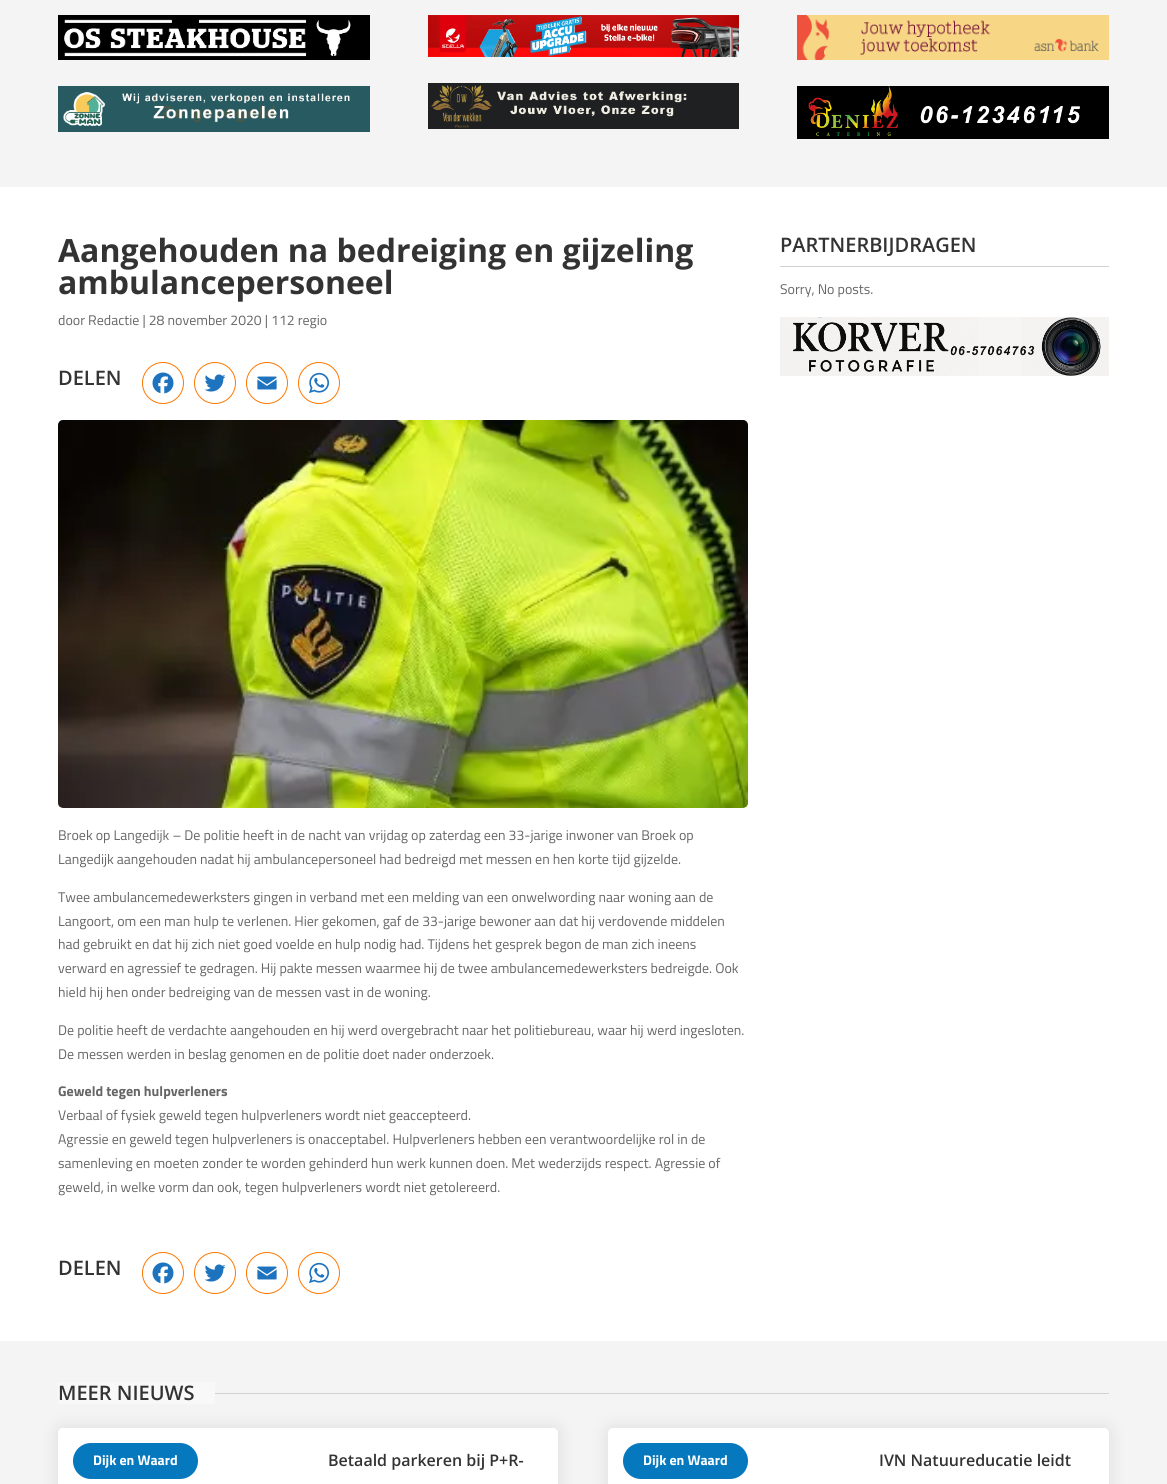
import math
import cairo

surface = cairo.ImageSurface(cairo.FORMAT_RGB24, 1167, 1484)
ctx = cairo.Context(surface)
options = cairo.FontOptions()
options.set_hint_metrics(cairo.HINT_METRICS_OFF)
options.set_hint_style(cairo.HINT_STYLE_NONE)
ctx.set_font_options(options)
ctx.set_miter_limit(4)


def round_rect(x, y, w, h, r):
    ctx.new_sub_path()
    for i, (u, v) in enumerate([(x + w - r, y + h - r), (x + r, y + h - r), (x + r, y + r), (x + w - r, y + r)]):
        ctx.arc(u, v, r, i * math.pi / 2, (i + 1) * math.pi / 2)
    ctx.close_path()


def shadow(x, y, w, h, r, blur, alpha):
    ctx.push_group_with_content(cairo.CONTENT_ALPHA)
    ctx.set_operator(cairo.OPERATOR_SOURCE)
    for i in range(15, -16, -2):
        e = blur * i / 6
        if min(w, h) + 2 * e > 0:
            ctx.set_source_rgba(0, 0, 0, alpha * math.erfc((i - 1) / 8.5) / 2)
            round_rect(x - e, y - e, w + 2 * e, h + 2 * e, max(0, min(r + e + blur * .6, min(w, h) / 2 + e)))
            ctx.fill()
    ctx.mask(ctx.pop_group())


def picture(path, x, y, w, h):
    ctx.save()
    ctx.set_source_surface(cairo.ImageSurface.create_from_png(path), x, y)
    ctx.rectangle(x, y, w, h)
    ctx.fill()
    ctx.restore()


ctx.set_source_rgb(1, 1, 1)
ctx.paint()
ctx.set_source_rgb(0.957, 0.957, 0.957)
ctx.rectangle(0, 0, 1167, 187)
ctx.fill()
picture("img1.png", 58, 15, 312, 45)
picture("img2.png", 58, 86, 312, 46)
picture("img3.png", 428, 15, 311, 42)
picture("img4.png", 428, 83, 311, 46)
picture("img5.png", 797, 15, 312, 45)
picture("img6.png", 797, 86, 312, 53)
ctx.select_font_face("Open Sans", cairo.FONT_SLANT_NORMAL, cairo.FONT_WEIGHT_BOLD)
ctx.set_font_size(32)
ctx.set_source_rgb(0.2, 0.2, 0.2)
ctx.move_to(58, 262)
ctx.show_text("Aangehouden na bedreiging en gijzeling")
ctx.move_to(58, 294)
ctx.show_text("ambulancepersoneel")
ctx.select_font_face("Titillium Web")
ctx.set_font_size(14)
ctx.set_source_rgb(0.4, 0.4, 0.4)
ctx.move_to(58, 325)
ctx.show_text("door Redactie | 28 november 2020 | 112 regio")
ctx.select_font_face("Open Sans SemiBold")
ctx.set_font_size(20)
ctx.set_source_rgb(0.2, 0.2, 0.2)
ctx.move_to(58, 385)
ctx.show_text("DELEN")
ctx.new_path()
ctx.arc(163, 383, 20.5, 0, 2 * math.pi)
ctx.set_source_rgb(1, 0.471, 0)
ctx.set_line_width(1)
ctx.stroke()
picture("img7.png", 152, 372, 22, 22)
ctx.arc(215, 383, 20.5, 0, 2 * math.pi)
ctx.stroke()
picture("img8.png", 204, 374, 22, 18)
ctx.arc(267, 383, 20.5, 0, 2 * math.pi)
ctx.stroke()
picture("img9.png", 257, 376, 20, 14)
ctx.arc(319, 383, 20.5, 0, 2 * math.pi)
ctx.stroke()
picture("img10.png", 309, 372, 21, 22)
picture("img11.png", 58, 420, 690, 388)
ctx.select_font_face("Titillium Web")
ctx.set_font_size(14)
ctx.set_source_rgb(0.4, 0.4, 0.4)
ctx.move_to(58, 840)
ctx.show_text("Broek op Langedijk – De politie heeft in de nacht van vrijdag op zaterdag een 33-jarige inwoner van Broek op")
ctx.move_to(58, 864)
ctx.show_text("Langedijk aangehouden nadat hij ambulancepersoneel had bedreigd met messen en hen korte tijd gijzelde.")
ctx.move_to(58, 902)
ctx.show_text("Twee ambulancemedewerksters gingen in verband met een melding van een onwelwording naar woning aan de")
ctx.move_to(58, 926)
ctx.show_text("Langoort, om een man hulp te verlenen. Hier gekomen, gaf de 33-jarige bewoner aan dat hij verdovende middelen")
ctx.move_to(58, 949)
ctx.show_text("had gebruikt en dat hij zich niet goed voelde en hulp nodig had. Tijdens het gesprek begon de man zich ineens")
ctx.move_to(58, 973)
ctx.show_text("verward en agressief te gedragen. Hij pakte messen waarmee hij de twee ambulancemedewerksters bedreigde. Ook")
ctx.move_to(58, 997)
ctx.show_text("hield hij hen onder bedreiging van de messen vast in de woning.")
ctx.move_to(58, 1035)
ctx.show_text("De politie heeft de verdachte aangehouden en hij werd overgebracht naar het politiebureau, waar hij werd ingesloten.")
ctx.move_to(58, 1059)
ctx.show_text("De messen werden in beslag genomen en de politie doet nader onderzoek.")
ctx.select_font_face("Titillium Web", cairo.FONT_SLANT_NORMAL, cairo.FONT_WEIGHT_BOLD)
ctx.move_to(58, 1096)
ctx.show_text("Geweld tegen hulpverleners")
ctx.select_font_face("Titillium Web")
ctx.move_to(58, 1120)
ctx.show_text("Verbaal of fysiek geweld tegen hulpverleners wordt niet geaccepteerd.")
ctx.move_to(58, 1144)
ctx.show_text("Agressie en geweld tegen hulpverleners is onacceptabel. Hulpverleners hebben een verantwoordelijke rol in de")
ctx.move_to(58, 1168)
ctx.show_text("samenleving en moeten zonder te worden gehinderd hun werk kunnen doen. Met wederzijds respect. Agressie of")
ctx.move_to(58, 1192)
ctx.show_text("geweld, in welke vorm dan ook, tegen hulpverleners wordt niet getolereerd.")
ctx.select_font_face("Open Sans SemiBold")
ctx.set_font_size(20)
ctx.set_source_rgb(0.2, 0.2, 0.2)
ctx.move_to(58, 1275)
ctx.show_text("DELEN")
ctx.new_path()
ctx.arc(163, 1273, 20.5, 0, 2 * math.pi)
ctx.set_source_rgb(1, 0.471, 0)
ctx.stroke()
picture("img7.png", 152, 1262, 22, 22)
ctx.arc(215, 1273, 20.5, 0, 2 * math.pi)
ctx.stroke()
picture("img8.png", 204, 1264, 22, 18)
ctx.arc(267, 1273, 20.5, 0, 2 * math.pi)
ctx.stroke()
picture("img9.png", 257, 1266, 20, 14)
ctx.arc(319, 1273, 20.5, 0, 2 * math.pi)
ctx.stroke()
picture("img10.png", 309, 1262, 21, 22)
ctx.set_source_rgb(0.82, 0.82, 0.82)
ctx.rectangle(780, 266, 329, 1)
ctx.fill()
ctx.set_source_rgb(0.2, 0.2, 0.2)
ctx.move_to(780, 252)
ctx.show_text("PARTNERBIJDRAGEN")
ctx.select_font_face("Titillium Web")
ctx.set_font_size(14)
ctx.set_source_rgb(0.4, 0.4, 0.4)
ctx.move_to(780, 294)
ctx.show_text("Sorry, No posts.")
picture("img12.png", 780, 317, 329, 59)
ctx.set_source_rgb(0.957, 0.957, 0.957)
ctx.rectangle(0, 1341, 1167, 143)
ctx.fill()
ctx.set_source_rgb(0.969, 0.969, 0.969)
ctx.rectangle(58, 1382, 157, 22)
ctx.fill()
ctx.select_font_face("Open Sans SemiBold")
ctx.set_font_size(20)
ctx.set_source_rgb(0.2, 0.2, 0.2)
ctx.move_to(58, 1400)
ctx.show_text("MEER NIEUWS")
ctx.set_source_rgb(0.82, 0.82, 0.82)
ctx.rectangle(215, 1393, 894, 1)
ctx.fill()
ctx.set_source_rgb(0, 0, 0)
shadow(58, 1428, 500, 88, 5, 9, 0.1)
ctx.set_source_rgb(1, 1, 1)
round_rect(58, 1428, 500, 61, 5)
ctx.fill()
ctx.set_source_rgb(0.024, 0.471, 0.745)
round_rect(73, 1443, 125, 36, 18)
ctx.fill()
ctx.select_font_face("Titillium Web", cairo.FONT_SLANT_NORMAL, cairo.FONT_WEIGHT_BOLD)
ctx.set_font_size(14)
ctx.set_source_rgb(1, 1, 1)
ctx.move_to(93, 1465)
ctx.show_text("Dijk en Waard")
ctx.select_font_face("Open Sans SemiBold")
ctx.set_font_size(16)
ctx.set_source_rgb(0.2, 0.2, 0.2)
ctx.move_to(328, 1466)
ctx.show_text("Betaald parkeren bij P+R-")
ctx.set_source_rgb(0, 0, 0)
shadow(608, 1428, 501, 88, 5, 9, 0.1)
ctx.set_source_rgb(1, 1, 1)
round_rect(608, 1428, 501, 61, 5)
ctx.fill()
ctx.set_source_rgb(0.024, 0.471, 0.745)
round_rect(623, 1443, 125, 36, 18)
ctx.fill()
ctx.select_font_face("Titillium Web", cairo.FONT_SLANT_NORMAL, cairo.FONT_WEIGHT_BOLD)
ctx.set_font_size(14)
ctx.set_source_rgb(1, 1, 1)
ctx.move_to(643, 1465)
ctx.show_text("Dijk en Waard")
ctx.select_font_face("Open Sans SemiBold")
ctx.set_font_size(16)
ctx.set_source_rgb(0.2, 0.2, 0.2)
ctx.move_to(879, 1466)
ctx.show_text("IVN Natuureducatie leidt")
surface.write_to_png("page.png")
